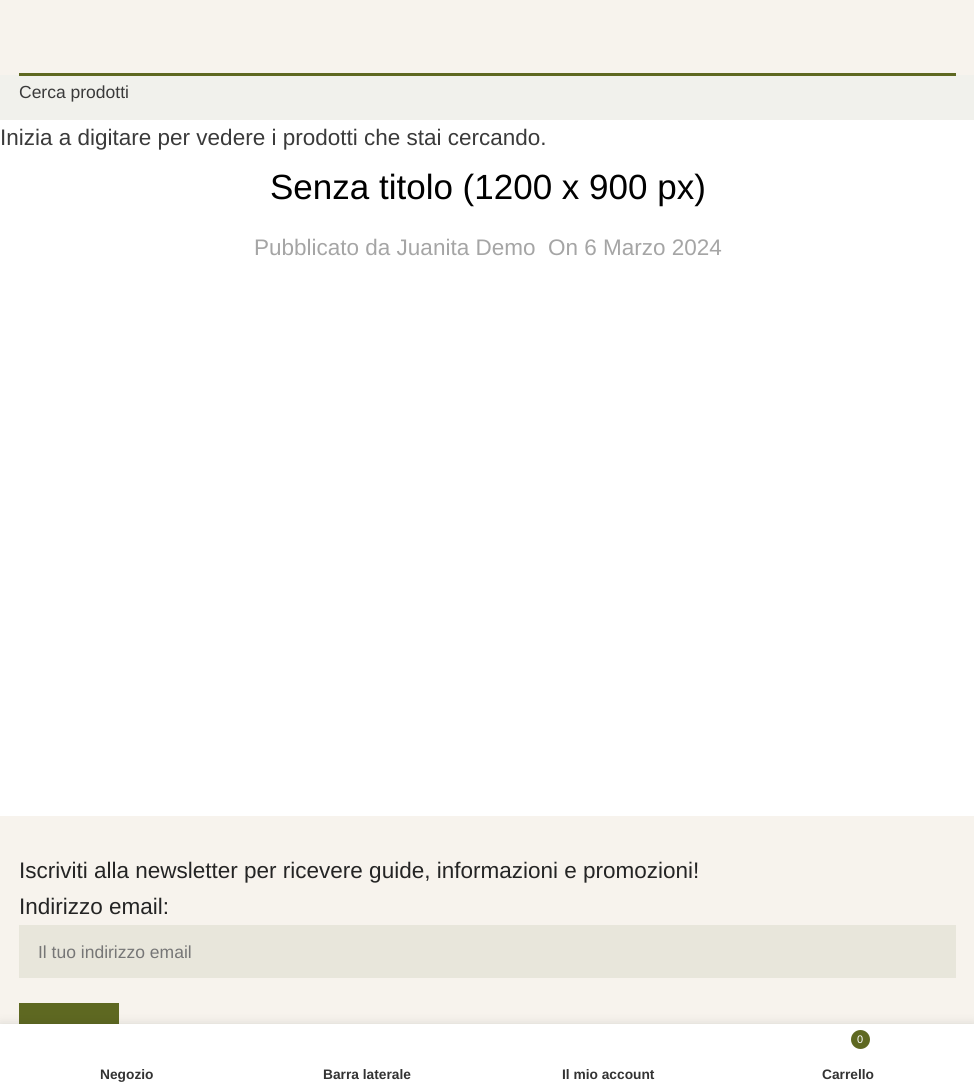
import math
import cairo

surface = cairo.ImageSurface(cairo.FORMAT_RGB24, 974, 1092)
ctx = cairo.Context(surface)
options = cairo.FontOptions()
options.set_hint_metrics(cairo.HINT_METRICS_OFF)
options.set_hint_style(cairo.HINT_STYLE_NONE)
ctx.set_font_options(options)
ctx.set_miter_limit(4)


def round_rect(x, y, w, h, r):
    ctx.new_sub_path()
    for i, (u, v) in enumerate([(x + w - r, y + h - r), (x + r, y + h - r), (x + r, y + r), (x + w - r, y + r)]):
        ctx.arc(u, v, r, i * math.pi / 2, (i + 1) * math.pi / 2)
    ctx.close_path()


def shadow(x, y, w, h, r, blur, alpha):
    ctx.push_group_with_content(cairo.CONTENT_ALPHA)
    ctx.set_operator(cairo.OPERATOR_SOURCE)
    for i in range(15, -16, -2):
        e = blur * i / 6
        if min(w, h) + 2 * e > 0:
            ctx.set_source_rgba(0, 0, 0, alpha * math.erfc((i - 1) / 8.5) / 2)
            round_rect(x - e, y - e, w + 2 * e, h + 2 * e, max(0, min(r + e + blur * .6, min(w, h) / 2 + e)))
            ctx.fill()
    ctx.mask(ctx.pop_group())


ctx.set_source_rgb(1, 1, 1)
ctx.paint()
ctx.set_source_rgb(0.945, 0.945, 0.922)
ctx.rectangle(0, 75, 974, 45)
ctx.fill()
ctx.select_font_face("Liberation Sans")
ctx.set_font_size(17.5)
ctx.set_source_rgb(0.227, 0.227, 0.227)
ctx.move_to(19, 98)
ctx.show_text("Cerca prodotti")
ctx.set_font_size(22.5)
ctx.move_to(0, 145)
ctx.show_text("Inizia a digitare per vedere i prodotti che stai cercando.")
ctx.set_source_rgb(0.965, 0.953, 0.929)
ctx.rectangle(0, 0, 974, 75)
ctx.fill()
ctx.set_source_rgb(0.369, 0.408, 0.129)
ctx.rectangle(19, 73, 937, 3)
ctx.fill()
ctx.set_font_size(35)
ctx.set_source_rgb(0, 0, 0)
ctx.move_to(270, 199)
ctx.show_text("Senza titolo (1200 x 900 px)")
ctx.set_font_size(22.5)
ctx.set_source_rgb(0.647, 0.647, 0.647)
ctx.move_to(254, 255)
ctx.show_text("Pubblicato da Juanita Demo")
ctx.move_to(548, 255)
ctx.show_text("On 6 Marzo 2024")
ctx.set_source_rgb(0.965, 0.953, 0.929)
ctx.rectangle(0, 816, 974, 208)
ctx.fill()
ctx.set_source_rgb(0.141, 0.141, 0.141)
ctx.move_to(19, 878)
ctx.show_text("Iscriviti alla newsletter per ricevere guide, informazioni e promozioni!")
ctx.move_to(19, 914)
ctx.show_text("Indirizzo email:")
ctx.set_source_rgb(0.91, 0.902, 0.859)
ctx.rectangle(19, 925, 937, 53)
ctx.fill()
ctx.set_font_size(17.5)
ctx.set_source_rgb(0.463, 0.463, 0.463)
ctx.move_to(38, 958)
ctx.show_text("Il tuo indirizzo email")
ctx.set_source_rgb(0.369, 0.408, 0.129)
ctx.rectangle(19, 1003, 100, 21)
ctx.fill()
ctx.set_source_rgb(0, 0, 0)
shadow(0, 1024, 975, 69, 0, 5.5, 0.12)
ctx.set_source_rgb(1, 1, 1)
ctx.rectangle(0, 1024, 974, 68)
ctx.fill()
ctx.select_font_face("Liberation Sans", cairo.FONT_SLANT_NORMAL, cairo.FONT_WEIGHT_BOLD)
ctx.set_font_size(13.75)
ctx.set_source_rgb(0.2, 0.2, 0.2)
ctx.move_to(100, 1079)
ctx.show_text("Negozio")
ctx.move_to(323, 1079)
ctx.show_text("Barra laterale")
ctx.move_to(562, 1079)
ctx.show_text("Il mio account")
ctx.set_source_rgb(0.369, 0.408, 0.129)
ctx.new_path()
ctx.arc(860.5, 1039.5, 9.5, 0, 2 * math.pi)
ctx.fill()
ctx.select_font_face("Liberation Sans")
ctx.set_font_size(11)
ctx.set_source_rgb(1, 1, 1)
ctx.move_to(857, 1043)
ctx.show_text("0")
ctx.select_font_face("Liberation Sans", cairo.FONT_SLANT_NORMAL, cairo.FONT_WEIGHT_BOLD)
ctx.set_font_size(13.75)
ctx.set_source_rgb(0.2, 0.2, 0.2)
ctx.move_to(822, 1079)
ctx.show_text("Carrello")
surface.write_to_png("page.png")
